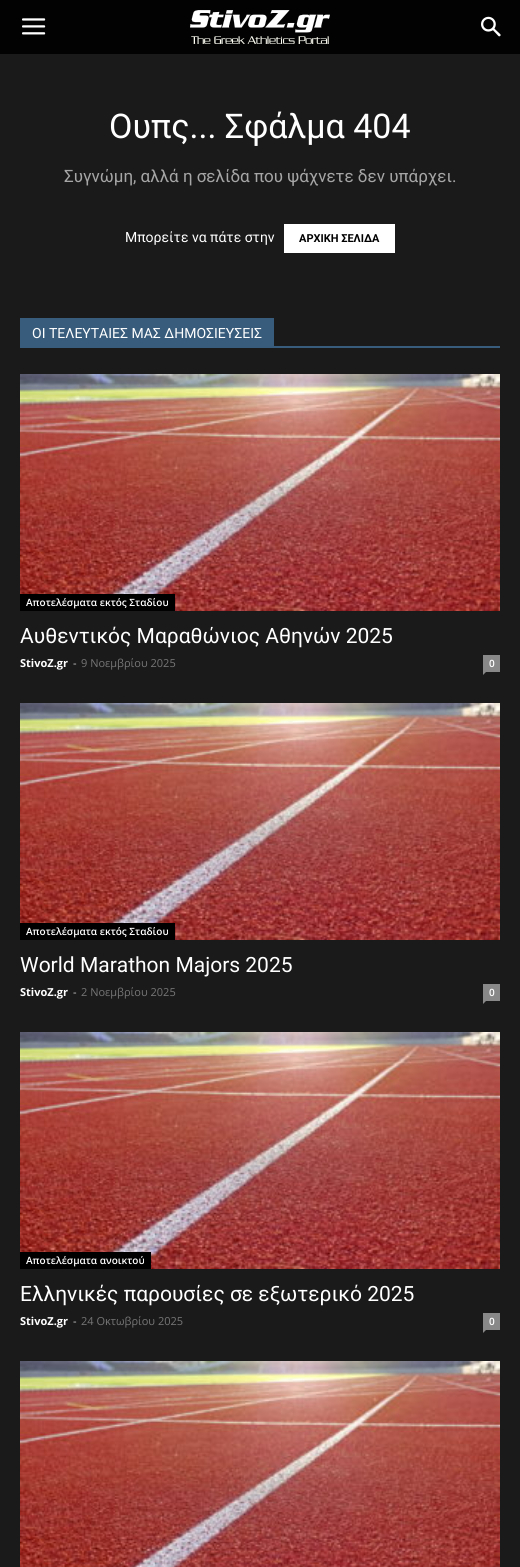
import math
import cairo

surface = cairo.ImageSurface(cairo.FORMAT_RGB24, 520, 1567)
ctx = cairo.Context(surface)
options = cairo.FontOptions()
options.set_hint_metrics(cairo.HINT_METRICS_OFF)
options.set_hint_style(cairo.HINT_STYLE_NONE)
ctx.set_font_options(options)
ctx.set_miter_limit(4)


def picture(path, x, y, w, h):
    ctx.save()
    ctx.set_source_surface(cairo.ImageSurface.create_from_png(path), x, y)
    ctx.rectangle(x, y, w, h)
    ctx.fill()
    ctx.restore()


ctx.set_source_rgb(0.102, 0.102, 0.102)
ctx.paint()
ctx.set_source_rgb(0.008, 0.008, 0.008)
ctx.rectangle(0, 0, 520, 54)
ctx.fill()
picture("img1.png", 22, 18, 24, 17)
picture("img2.png", 190, 10, 140, 34)
picture("img3.png", 481, 16, 20, 21)
ctx.select_font_face("Roboto")
ctx.set_font_size(34)
ctx.set_source_rgb(1, 1, 1)
ctx.move_to(109, 138)
ctx.show_text("Ουπς... Σφάλμα 404")
ctx.set_font_size(17)
ctx.set_source_rgb(0.651, 0.651, 0.651)
ctx.move_to(64, 182)
ctx.show_text("Συγνώμη, αλλά η σελίδα που ψάχνετε δεν υπάρχει.")
ctx.set_font_size(14)
ctx.set_source_rgb(1, 1, 1)
ctx.move_to(125, 242)
ctx.show_text("Μπορείτε να πάτε στην")
ctx.rectangle(284, 224, 111, 29)
ctx.fill()
ctx.select_font_face("Roboto", cairo.FONT_SLANT_NORMAL, cairo.FONT_WEIGHT_BOLD)
ctx.set_font_size(11)
ctx.set_source_rgb(0, 0, 0)
ctx.move_to(299, 242)
ctx.show_text("ΑΡΧΙΚΗ ΣΕΛΙΔΑ")
ctx.set_source_rgb(0.22, 0.361, 0.482)
ctx.rectangle(20, 346, 480, 2)
ctx.fill()
ctx.rectangle(20, 318, 254, 28)
ctx.fill()
ctx.select_font_face("Roboto")
ctx.set_font_size(14)
ctx.set_source_rgb(1, 1, 1)
ctx.move_to(32, 338)
ctx.show_text("ΟΙ ΤΕΛΕΥΤΑΙΕΣ ΜΑΣ ΔΗΜΟΣΙΕΥΣΕΙΣ")
picture("img4.png", 20, 374, 480, 237)
ctx.set_source_rgb(0, 0, 0)
ctx.rectangle(20, 594, 155, 17)
ctx.fill()
ctx.select_font_face("Open Sans SemiBold")
ctx.set_font_size(10)
ctx.set_source_rgb(1, 1, 1)
ctx.move_to(26, 606)
ctx.show_text("Αποτελέσματα εκτός Σταδίου")
ctx.select_font_face("Roboto")
ctx.set_font_size(21)
ctx.move_to(20, 643)
ctx.show_text("Αυθεντικός Μαραθώνιος Αθηνών 2025")
ctx.select_font_face("Open Sans", cairo.FONT_SLANT_NORMAL, cairo.FONT_WEIGHT_BOLD)
ctx.set_font_size(11)
ctx.move_to(20, 667)
ctx.show_text("StivoZ.gr")
ctx.select_font_face("Open Sans")
ctx.set_source_rgb(0.8, 0.8, 0.8)
ctx.move_to(73, 667)
ctx.show_text("-")
ctx.set_source_rgb(0.463, 0.463, 0.463)
ctx.move_to(81, 667)
ctx.show_text("9 Νοεμβρίου 2025")
ctx.set_source_rgb(0.533, 0.533, 0.533)
ctx.rectangle(483, 655, 17, 17)
ctx.fill()
ctx.select_font_face("Open Sans SemiBold")
ctx.set_font_size(10)
ctx.set_source_rgb(1, 1, 1)
ctx.move_to(489, 667)
ctx.show_text("0")
ctx.set_source_rgb(0.533, 0.533, 0.533)
ctx.new_path()
ctx.move_to(483, 672)
ctx.line_to(486, 672)
ctx.line_to(483, 675)
ctx.close_path()
ctx.fill()
picture("img5.png", 20, 703, 480, 237)
ctx.set_source_rgb(0, 0, 0)
ctx.rectangle(20, 923, 155, 17)
ctx.fill()
ctx.set_source_rgb(1, 1, 1)
ctx.move_to(26, 935)
ctx.show_text("Αποτελέσματα εκτός Σταδίου")
ctx.select_font_face("Roboto")
ctx.set_font_size(21)
ctx.move_to(20, 972)
ctx.show_text("World Marathon Majors 2025")
ctx.select_font_face("Open Sans", cairo.FONT_SLANT_NORMAL, cairo.FONT_WEIGHT_BOLD)
ctx.set_font_size(11)
ctx.move_to(20, 996)
ctx.show_text("StivoZ.gr")
ctx.select_font_face("Open Sans")
ctx.set_source_rgb(0.8, 0.8, 0.8)
ctx.move_to(73, 996)
ctx.show_text("-")
ctx.set_source_rgb(0.463, 0.463, 0.463)
ctx.move_to(81, 996)
ctx.show_text("2 Νοεμβρίου 2025")
ctx.set_source_rgb(0.533, 0.533, 0.533)
ctx.rectangle(483, 984, 17, 17)
ctx.fill()
ctx.select_font_face("Open Sans SemiBold")
ctx.set_font_size(10)
ctx.set_source_rgb(1, 1, 1)
ctx.move_to(489, 996)
ctx.show_text("0")
ctx.set_source_rgb(0.533, 0.533, 0.533)
ctx.new_path()
ctx.move_to(483, 1001)
ctx.line_to(486, 1001)
ctx.line_to(483, 1004)
ctx.close_path()
ctx.fill()
picture("img4.png", 20, 1032, 480, 237)
ctx.set_source_rgb(0, 0, 0)
ctx.rectangle(20, 1252, 131, 17)
ctx.fill()
ctx.set_source_rgb(1, 1, 1)
ctx.move_to(26, 1264)
ctx.show_text("Αποτελέσματα ανοικτού")
ctx.select_font_face("Roboto")
ctx.set_font_size(21)
ctx.move_to(20, 1301)
ctx.show_text("Ελληνικές παρουσίες σε εξωτερικό 2025")
ctx.select_font_face("Open Sans", cairo.FONT_SLANT_NORMAL, cairo.FONT_WEIGHT_BOLD)
ctx.set_font_size(11)
ctx.move_to(20, 1325)
ctx.show_text("StivoZ.gr")
ctx.select_font_face("Open Sans")
ctx.set_source_rgb(0.8, 0.8, 0.8)
ctx.move_to(73, 1325)
ctx.show_text("-")
ctx.set_source_rgb(0.463, 0.463, 0.463)
ctx.move_to(81, 1325)
ctx.show_text("24 Οκτωβρίου 2025")
ctx.set_source_rgb(0.533, 0.533, 0.533)
ctx.rectangle(483, 1313, 17, 17)
ctx.fill()
ctx.select_font_face("Open Sans SemiBold")
ctx.set_font_size(10)
ctx.set_source_rgb(1, 1, 1)
ctx.move_to(489, 1325)
ctx.show_text("0")
ctx.set_source_rgb(0.533, 0.533, 0.533)
ctx.new_path()
ctx.move_to(483, 1330)
ctx.line_to(486, 1330)
ctx.line_to(483, 1333)
ctx.close_path()
ctx.fill()
picture("img6.png", 20, 1361, 480, 206)
surface.write_to_png("page.png")
